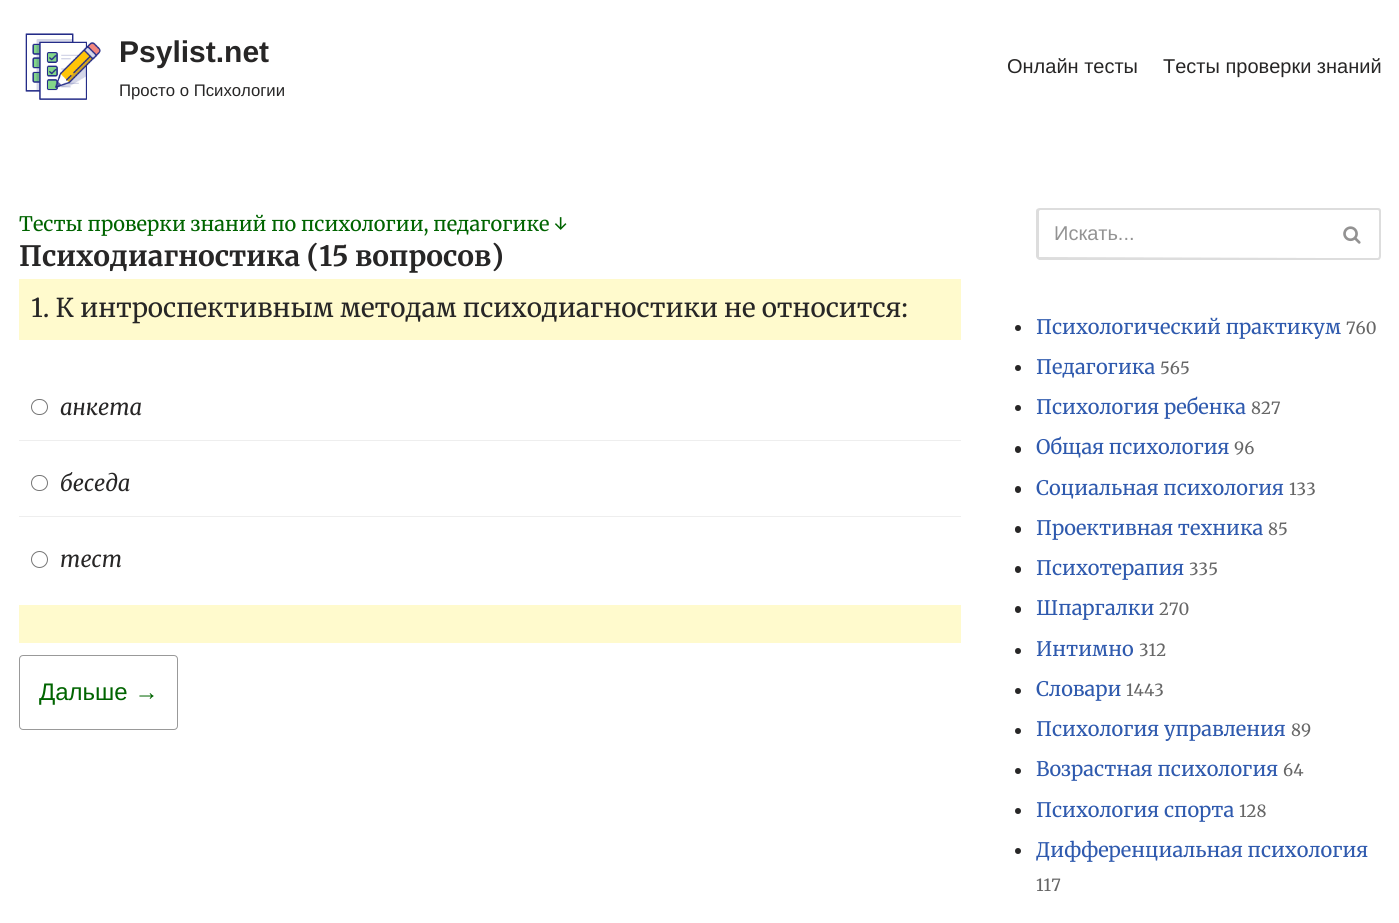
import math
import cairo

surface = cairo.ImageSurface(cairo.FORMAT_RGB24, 1399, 923)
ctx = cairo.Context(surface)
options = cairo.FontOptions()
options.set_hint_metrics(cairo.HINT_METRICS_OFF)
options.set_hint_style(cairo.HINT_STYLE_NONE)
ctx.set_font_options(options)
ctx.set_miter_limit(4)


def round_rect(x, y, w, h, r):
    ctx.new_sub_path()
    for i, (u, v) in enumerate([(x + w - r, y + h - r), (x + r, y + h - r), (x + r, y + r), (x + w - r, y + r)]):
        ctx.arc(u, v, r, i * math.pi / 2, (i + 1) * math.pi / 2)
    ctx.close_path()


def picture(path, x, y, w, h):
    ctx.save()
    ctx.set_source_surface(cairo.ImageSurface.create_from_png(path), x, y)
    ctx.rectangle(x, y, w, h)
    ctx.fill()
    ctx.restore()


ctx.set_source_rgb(1, 1, 1)
ctx.paint()
picture("img1.png", 25, 33, 76, 67)
ctx.select_font_face("Liberation Sans", cairo.FONT_SLANT_NORMAL, cairo.FONT_WEIGHT_BOLD)
ctx.set_font_size(30)
ctx.set_source_rgb(0.153, 0.149, 0.149)
ctx.move_to(119, 62)
ctx.show_text("Psylist.net")
ctx.select_font_face("Liberation Sans")
ctx.set_font_size(16.75)
ctx.move_to(119, 96)
ctx.show_text("Просто о Психологии")
ctx.set_font_size(20)
ctx.move_to(1007, 73)
ctx.show_text("Онлайн тесты")
ctx.move_to(1163, 73)
ctx.show_text("Тесты проверки знаний")
ctx.select_font_face("Merriweather")
ctx.set_source_rgb(0, 0.392, 0)
ctx.move_to(19, 231)
ctx.show_text("Тесты проверки знаний по психологии, педагогике ↓")
ctx.select_font_face("Merriweather", cairo.FONT_SLANT_NORMAL, cairo.FONT_WEIGHT_BOLD)
ctx.set_font_size(28)
ctx.set_source_rgb(0.153, 0.149, 0.149)
ctx.move_to(19, 266)
ctx.show_text("Психодиагностика (15 вопросов)")
ctx.set_source_rgb(1, 0.98, 0.804)
ctx.rectangle(19, 279, 942, 61)
ctx.fill()
ctx.select_font_face("Merriweather")
ctx.set_font_size(26)
ctx.set_source_rgb(0.153, 0.149, 0.149)
ctx.move_to(31, 317)
ctx.show_text("1. К интроспективным методам психодиагностики не относится:")
ctx.set_source_rgb(1, 0.98, 0.804)
ctx.rectangle(19, 605, 942, 38)
ctx.fill()
ctx.set_source_rgb(0.933, 0.933, 0.933)
ctx.rectangle(19, 440, 942, 1)
ctx.fill()
round_rect(31.5, 399.5, 16, 15, 7.5)
ctx.set_source_rgb(0.463, 0.463, 0.463)
ctx.set_line_width(1)
ctx.stroke()
ctx.select_font_face("Merriweather", cairo.FONT_SLANT_ITALIC)
ctx.set_font_size(22)
ctx.set_source_rgb(0.153, 0.149, 0.149)
ctx.move_to(60, 415)
ctx.show_text("анкета")
ctx.set_source_rgb(0.933, 0.933, 0.933)
ctx.rectangle(19, 516, 942, 1)
ctx.fill()
round_rect(31.5, 475.5, 16, 15, 7.5)
ctx.set_source_rgb(0.463, 0.463, 0.463)
ctx.stroke()
ctx.set_source_rgb(0.153, 0.149, 0.149)
ctx.move_to(60, 491)
ctx.show_text("беседа")
ctx.new_path()
ctx.arc(39.5, 559.5, 8, 0, 2 * math.pi)
ctx.set_source_rgb(0.463, 0.463, 0.463)
ctx.stroke()
ctx.set_source_rgb(0.153, 0.149, 0.149)
ctx.move_to(60, 567)
ctx.show_text("тест")
round_rect(19.5, 655.5, 158, 74, 3.5)
ctx.set_source_rgb(0.6, 0.6, 0.6)
ctx.stroke()
ctx.select_font_face("Liberation Sans")
ctx.set_font_size(24)
ctx.set_source_rgb(0, 0.392, 0)
ctx.move_to(39, 700)
ctx.show_text("Дальше →")
ctx.set_source_rgb(0.867, 0.867, 0.867)
ctx.set_fill_rule(cairo.FILL_RULE_EVEN_ODD)
ctx.new_path()
ctx.move_to(1040, 208)
ctx.line_to(1325, 208)
ctx.line_to(1325, 260)
ctx.line_to(1040, 260)
ctx.curve_to(1038, 260, 1036, 258, 1036, 256)
ctx.line_to(1036, 211)
ctx.curve_to(1036, 209, 1038, 208, 1040, 208)
ctx.close_path()
ctx.move_to(1040, 210)
ctx.line_to(1325, 210)
ctx.line_to(1325, 258)
ctx.line_to(1039, 257)
ctx.curve_to(1039, 257, 1039, 216, 1039, 211)
ctx.close_path()
ctx.fill()
ctx.set_font_size(20)
ctx.set_source_rgb(0.576, 0.576, 0.576)
ctx.move_to(1054, 240)
ctx.show_text("Искать...")
ctx.set_source_rgb(0.867, 0.867, 0.867)
ctx.new_path()
ctx.move_to(1325, 208)
ctx.line_to(1378, 208)
ctx.curve_to(1380, 208, 1381, 209, 1381, 211)
ctx.line_to(1381, 256)
ctx.curve_to(1381, 258, 1380, 260, 1378, 260)
ctx.line_to(1325, 260)
ctx.close_path()
ctx.move_to(1325, 210)
ctx.line_to(1378, 210)
ctx.curve_to(1378, 210, 1379, 211, 1379, 211)
ctx.line_to(1379, 256)
ctx.curve_to(1379, 257, 1378, 258, 1378, 258)
ctx.line_to(1325, 258)
ctx.close_path()
ctx.fill()
picture("img2.png", 1343, 226, 18, 18)
ctx.set_source_rgb(0.153, 0.149, 0.149)
ctx.arc(1018, 328, 3, 0, 2 * math.pi)
ctx.fill()
ctx.select_font_face("Merriweather")
ctx.set_source_rgb(0.184, 0.353, 0.682)
ctx.move_to(1036, 334)
ctx.show_text("Психологический практикум")
ctx.set_font_size(16.75)
ctx.set_source_rgb(0.4, 0.4, 0.4)
ctx.move_to(1346, 334)
ctx.show_text("760")
ctx.set_source_rgb(0.153, 0.149, 0.149)
ctx.new_path()
ctx.arc(1018, 368, 3, 0, 2 * math.pi)
ctx.fill()
ctx.set_font_size(20)
ctx.set_source_rgb(0.184, 0.353, 0.682)
ctx.move_to(1036, 374)
ctx.show_text("Педагогика")
ctx.set_font_size(16.75)
ctx.set_source_rgb(0.4, 0.4, 0.4)
ctx.move_to(1160, 374)
ctx.show_text("565")
ctx.set_source_rgb(0.153, 0.149, 0.149)
ctx.new_path()
ctx.arc(1018, 408, 3, 0, 2 * math.pi)
ctx.fill()
ctx.set_font_size(20)
ctx.set_source_rgb(0.184, 0.353, 0.682)
ctx.move_to(1036, 414)
ctx.show_text("Психология ребенка")
ctx.set_font_size(16.75)
ctx.set_source_rgb(0.4, 0.4, 0.4)
ctx.move_to(1251, 414)
ctx.show_text("827")
ctx.set_source_rgb(0.153, 0.149, 0.149)
round_rect(1015, 446, 6, 7, 3)
ctx.fill()
ctx.set_font_size(20)
ctx.set_source_rgb(0.184, 0.353, 0.682)
ctx.move_to(1036, 454)
ctx.show_text("Общая психология")
ctx.set_font_size(16.75)
ctx.set_source_rgb(0.4, 0.4, 0.4)
ctx.move_to(1234, 454)
ctx.show_text("96")
ctx.set_source_rgb(0.153, 0.149, 0.149)
round_rect(1015, 486, 6, 7, 3)
ctx.fill()
ctx.set_font_size(20)
ctx.set_source_rgb(0.184, 0.353, 0.682)
ctx.move_to(1036, 495)
ctx.show_text("Социальная психология")
ctx.set_font_size(16.75)
ctx.set_source_rgb(0.4, 0.4, 0.4)
ctx.move_to(1289, 495)
ctx.show_text("133")
ctx.set_source_rgb(0.153, 0.149, 0.149)
round_rect(1015, 526, 6, 7, 3)
ctx.fill()
ctx.set_font_size(20)
ctx.set_source_rgb(0.184, 0.353, 0.682)
ctx.move_to(1036, 535)
ctx.show_text("Проективная техника")
ctx.set_font_size(16.75)
ctx.set_source_rgb(0.4, 0.4, 0.4)
ctx.move_to(1268, 535)
ctx.show_text("85")
ctx.set_source_rgb(0.153, 0.149, 0.149)
round_rect(1015, 566, 6, 7, 3)
ctx.fill()
ctx.set_font_size(20)
ctx.set_source_rgb(0.184, 0.353, 0.682)
ctx.move_to(1036, 575)
ctx.show_text("Психотерапия")
ctx.set_font_size(16.75)
ctx.set_source_rgb(0.4, 0.4, 0.4)
ctx.move_to(1189, 575)
ctx.show_text("335")
ctx.set_source_rgb(0.153, 0.149, 0.149)
round_rect(1015, 606, 6, 7, 3)
ctx.fill()
ctx.set_font_size(20)
ctx.set_source_rgb(0.184, 0.353, 0.682)
ctx.move_to(1036, 615)
ctx.show_text("Шпаргалки")
ctx.set_font_size(16.75)
ctx.set_source_rgb(0.4, 0.4, 0.4)
ctx.move_to(1159, 615)
ctx.show_text("270")
ctx.set_source_rgb(0.153, 0.149, 0.149)
ctx.new_path()
ctx.arc(1018, 651, 3, 0, 2 * math.pi)
ctx.fill()
ctx.set_font_size(20)
ctx.set_source_rgb(0.184, 0.353, 0.682)
ctx.move_to(1036, 656)
ctx.show_text("Интимно")
ctx.set_font_size(16.75)
ctx.set_source_rgb(0.4, 0.4, 0.4)
ctx.move_to(1139, 656)
ctx.show_text("312")
ctx.set_source_rgb(0.153, 0.149, 0.149)
ctx.new_path()
ctx.arc(1018, 691, 3, 0, 2 * math.pi)
ctx.fill()
ctx.set_font_size(20)
ctx.set_source_rgb(0.184, 0.353, 0.682)
ctx.move_to(1036, 696)
ctx.show_text("Словари")
ctx.set_font_size(16.75)
ctx.set_source_rgb(0.4, 0.4, 0.4)
ctx.move_to(1126, 696)
ctx.show_text("1443")
ctx.set_source_rgb(0.153, 0.149, 0.149)
ctx.new_path()
ctx.arc(1018, 731, 3, 0, 2 * math.pi)
ctx.fill()
ctx.set_font_size(20)
ctx.set_source_rgb(0.184, 0.353, 0.682)
ctx.move_to(1036, 736)
ctx.show_text("Психология управления")
ctx.set_font_size(16.75)
ctx.set_source_rgb(0.4, 0.4, 0.4)
ctx.move_to(1291, 736)
ctx.show_text("89")
ctx.set_source_rgb(0.153, 0.149, 0.149)
ctx.new_path()
ctx.arc(1018, 771, 3, 0, 2 * math.pi)
ctx.fill()
ctx.set_font_size(20)
ctx.set_source_rgb(0.184, 0.353, 0.682)
ctx.move_to(1036, 776)
ctx.show_text("Возрастная психология")
ctx.set_font_size(16.75)
ctx.set_source_rgb(0.4, 0.4, 0.4)
ctx.move_to(1283, 776)
ctx.show_text("64")
ctx.set_source_rgb(0.153, 0.149, 0.149)
ctx.new_path()
ctx.arc(1018, 811, 3, 0, 2 * math.pi)
ctx.fill()
ctx.set_font_size(20)
ctx.set_source_rgb(0.184, 0.353, 0.682)
ctx.move_to(1036, 817)
ctx.show_text("Психология спорта")
ctx.set_font_size(16.75)
ctx.set_source_rgb(0.4, 0.4, 0.4)
ctx.move_to(1239, 817)
ctx.show_text("128")
ctx.set_source_rgb(0.153, 0.149, 0.149)
ctx.new_path()
ctx.arc(1018, 851, 3, 0, 2 * math.pi)
ctx.fill()
ctx.set_font_size(20)
ctx.set_source_rgb(0.184, 0.353, 0.682)
ctx.move_to(1036, 857)
ctx.show_text("Дифференциальная психология")
ctx.set_font_size(16.75)
ctx.set_source_rgb(0.4, 0.4, 0.4)
ctx.move_to(1036, 891)
ctx.show_text("117")
surface.write_to_png("page.png")
